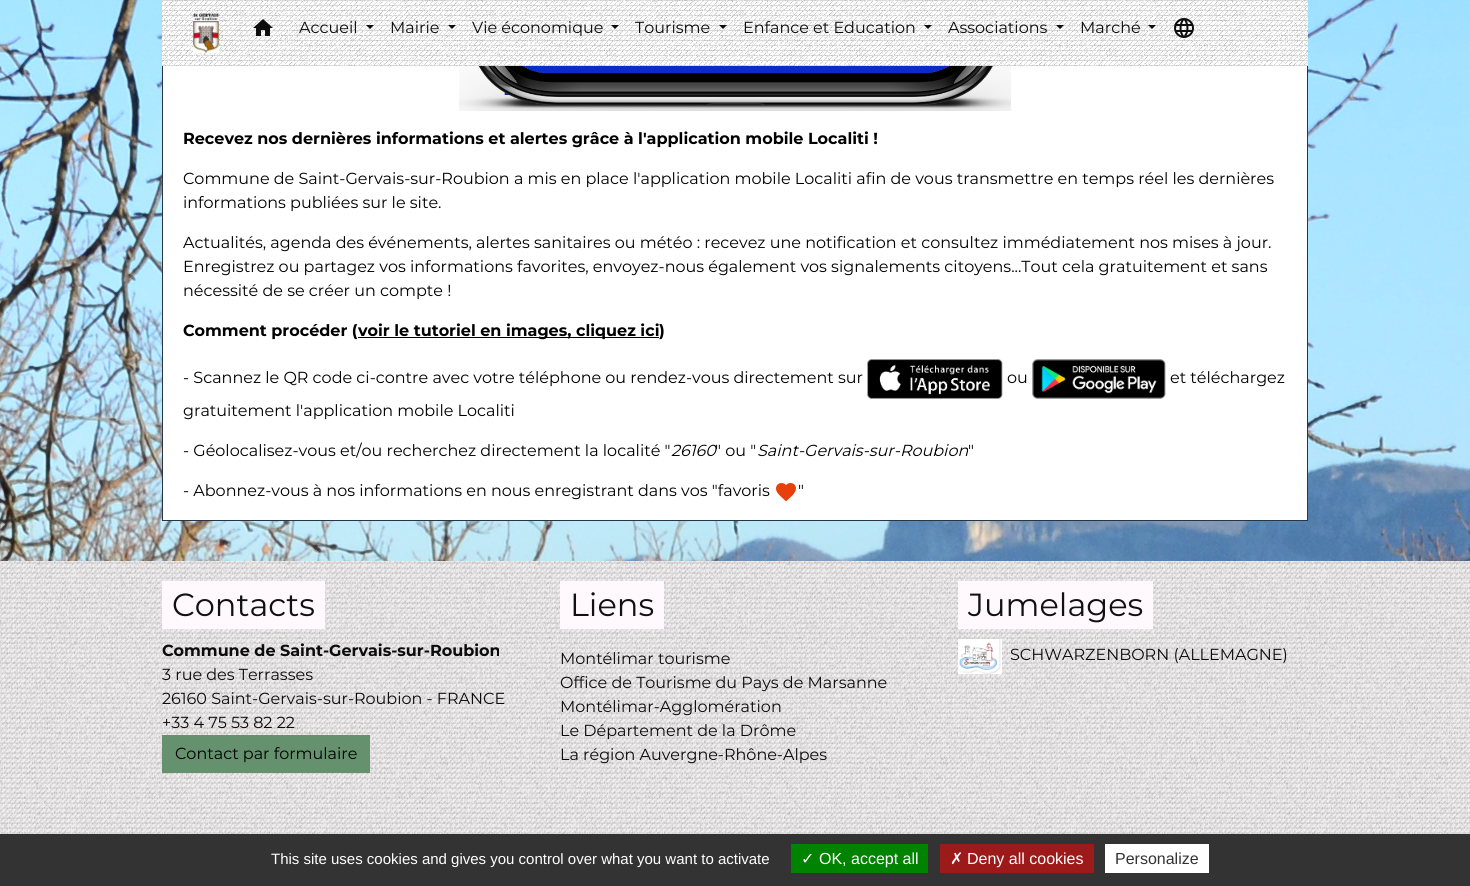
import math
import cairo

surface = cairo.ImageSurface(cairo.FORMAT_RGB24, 1470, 886)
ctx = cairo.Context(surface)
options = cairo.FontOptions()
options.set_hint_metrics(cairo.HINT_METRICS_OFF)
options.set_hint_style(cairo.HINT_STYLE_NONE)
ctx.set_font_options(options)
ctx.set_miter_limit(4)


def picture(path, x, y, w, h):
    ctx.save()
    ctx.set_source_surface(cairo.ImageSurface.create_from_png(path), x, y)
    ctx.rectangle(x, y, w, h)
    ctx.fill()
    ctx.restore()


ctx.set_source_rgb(1, 1, 1)
ctx.paint()
picture("img1.png", 0, 0, 1470, 561)
ctx.set_source_rgb(1, 1, 1)
ctx.rectangle(163, 66, 1144, 454)
ctx.fill()
ctx.rectangle(162.5, -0.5, 1145, 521)
ctx.set_source_rgb(0.153, 0.208, 0.282)
ctx.set_line_width(1)
ctx.stroke()
ctx.set_source_rgb(1, 1, 1)
ctx.rectangle(162, 0, 1146, 66)
ctx.fill()
picture("img2.png", 162, 0, 1146, 66)
picture("img3.png", 193, 13, 27, 40)
picture("img4.png", 253, 19, 20, 17)
ctx.select_font_face("Montserrat")
ctx.set_font_size(16)
ctx.set_source_rgb(0.047, 0.047, 0.047)
ctx.move_to(299, 33)
ctx.show_text("Accueil")
ctx.set_source_rgb(0.055, 0.051, 0.051)
ctx.new_path()
ctx.move_to(366, 25)
ctx.line_to(374, 25)
ctx.line_to(370, 29)
ctx.close_path()
ctx.fill()
ctx.set_source_rgb(0.047, 0.047, 0.047)
ctx.move_to(390, 33)
ctx.show_text("Mairie")
ctx.set_source_rgb(0.055, 0.051, 0.051)
ctx.new_path()
ctx.move_to(448, 25)
ctx.line_to(456, 25)
ctx.line_to(452, 29)
ctx.close_path()
ctx.fill()
ctx.set_source_rgb(0.047, 0.047, 0.047)
ctx.move_to(472, 33)
ctx.show_text("Vie économique")
ctx.set_source_rgb(0.055, 0.051, 0.051)
ctx.new_path()
ctx.move_to(611, 25)
ctx.line_to(619, 25)
ctx.line_to(615, 29)
ctx.close_path()
ctx.fill()
ctx.set_source_rgb(0.047, 0.047, 0.047)
ctx.move_to(635, 33)
ctx.show_text("Tourisme")
ctx.set_source_rgb(0.055, 0.051, 0.051)
ctx.new_path()
ctx.move_to(719, 25)
ctx.line_to(727, 25)
ctx.line_to(723, 29)
ctx.close_path()
ctx.fill()
ctx.set_source_rgb(0.047, 0.047, 0.047)
ctx.move_to(743, 33)
ctx.show_text("Enfance et Education")
ctx.set_source_rgb(0.055, 0.051, 0.051)
ctx.new_path()
ctx.move_to(924, 25)
ctx.line_to(932, 25)
ctx.line_to(928, 29)
ctx.close_path()
ctx.fill()
ctx.set_source_rgb(0.047, 0.047, 0.047)
ctx.move_to(948, 33)
ctx.show_text("Associations")
ctx.set_source_rgb(0.055, 0.051, 0.051)
ctx.new_path()
ctx.move_to(1056, 25)
ctx.line_to(1064, 25)
ctx.line_to(1060, 29)
ctx.close_path()
ctx.fill()
ctx.set_source_rgb(0.047, 0.047, 0.047)
ctx.move_to(1080, 33)
ctx.show_text("Marché")
ctx.set_source_rgb(0.055, 0.051, 0.051)
ctx.new_path()
ctx.move_to(1148, 25)
ctx.line_to(1156, 25)
ctx.line_to(1152, 29)
ctx.close_path()
ctx.fill()
picture("img5.png", 1174, 18, 20, 20)
picture("img6.png", 459, 66, 552, 45)
ctx.select_font_face("Montserrat", cairo.FONT_SLANT_NORMAL, cairo.FONT_WEIGHT_BOLD)
ctx.set_source_rgb(0, 0, 0)
ctx.move_to(183, 144)
ctx.show_text("Recevez nos dernières informations et alertes grâce à l'application mobile Localiti !")
ctx.select_font_face("Montserrat")
ctx.move_to(183, 184)
ctx.show_text("Commune de Saint-Gervais-sur-Roubion a mis en place l'application mobile Localiti afin de vous transmettre en temps réel les dernières")
ctx.move_to(183, 208)
ctx.show_text("informations publiées sur le site.")
ctx.move_to(183, 248)
ctx.show_text("Actualités, agenda des événements, alertes sanitaires ou météo : recevez une notification et consultez immédiatement nos mises à jour.")
ctx.move_to(183, 272)
ctx.show_text("Enregistrez ou partagez vos informations favorites, envoyez-nous également vos signalements citoyens...Tout cela gratuitement et sans")
ctx.move_to(183, 296)
ctx.show_text("nécessité de se créer un compte !")
ctx.select_font_face("Montserrat", cairo.FONT_SLANT_NORMAL, cairo.FONT_WEIGHT_BOLD)
ctx.move_to(183, 336)
ctx.show_text("Comment procéder (")
ctx.rectangle(358, 337, 301, 1)
ctx.fill()
ctx.move_to(358, 336)
ctx.show_text("voir le tutoriel en images, cliquez ici")
ctx.move_to(659, 336)
ctx.show_text(")")
ctx.select_font_face("Montserrat")
ctx.move_to(183, 383)
ctx.show_text("- Scannez le QR code ci-contre avec votre téléphone ou rendez-vous directement sur")
picture("img7.png", 867, 359, 136, 40)
ctx.move_to(1007, 383)
ctx.show_text("ou")
picture("img8.png", 1032, 359, 134, 40)
ctx.move_to(1170, 383)
ctx.show_text("et téléchargez")
ctx.move_to(183, 416)
ctx.show_text("gratuitement l'application mobile Localiti")
ctx.move_to(183, 456)
ctx.show_text("- Géolocalisez-vous et/ou recherchez directement la localité \"")
ctx.select_font_face("Montserrat", cairo.FONT_SLANT_ITALIC)
ctx.move_to(671, 456)
ctx.show_text("26160")
ctx.select_font_face("Montserrat")
ctx.move_to(715, 456)
ctx.show_text("\" ou \"")
ctx.select_font_face("Montserrat", cairo.FONT_SLANT_ITALIC)
ctx.move_to(757, 456)
ctx.show_text("Saint-Gervais-sur-Roubion")
ctx.select_font_face("Montserrat")
ctx.move_to(968, 456)
ctx.show_text("\"")
ctx.move_to(183, 496)
ctx.show_text("- Abonnez-vous à nos informations en nous enregistrant dans vos \"favoris")
picture("img9.png", 776, 483, 20, 19)
ctx.move_to(798, 496)
ctx.show_text("\"")
ctx.set_source_rgb(0.941, 0.933, 0.933)
ctx.rectangle(0, 561, 1470, 273)
ctx.fill()
picture("img10.png", 0, 561, 1470, 273)
ctx.set_source_rgb(1, 0.976, 0.992)
ctx.rectangle(162, 581, 163, 48)
ctx.fill()
ctx.set_font_size(32)
ctx.set_source_rgb(0.067, 0.067, 0.071)
ctx.move_to(172, 616)
ctx.show_text("Contacts")
ctx.select_font_face("Montserrat", cairo.FONT_SLANT_NORMAL, cairo.FONT_WEIGHT_BOLD)
ctx.set_font_size(16)
ctx.set_source_rgb(0.047, 0.047, 0.047)
ctx.move_to(162, 656)
ctx.show_text("Commune de Saint-Gervais-sur-Roubion")
ctx.select_font_face("Montserrat")
ctx.move_to(162, 680)
ctx.show_text("3 rue des Terrasses")
ctx.move_to(162, 704)
ctx.show_text("26160 Saint-Gervais-sur-Roubion - FRANCE")
ctx.move_to(162, 728)
ctx.show_text("+33 4 75 53 82 22")
ctx.set_source_rgb(0.396, 0.569, 0.431)
ctx.rectangle(162, 735, 208, 38)
ctx.fill()
ctx.set_source_rgb(0, 0, 0)
ctx.move_to(175, 759)
ctx.show_text("Contact par formulaire")
ctx.set_source_rgb(1, 0.976, 0.992)
ctx.rectangle(560, 581, 104, 48)
ctx.fill()
ctx.set_font_size(32)
ctx.set_source_rgb(0.067, 0.067, 0.071)
ctx.move_to(570, 616)
ctx.show_text("Liens")
ctx.set_font_size(16)
ctx.set_source_rgb(0.047, 0.047, 0.047)
ctx.move_to(560, 664)
ctx.show_text("Montélimar tourisme")
ctx.move_to(560, 688)
ctx.show_text("Office de Tourisme du Pays de Marsanne")
ctx.move_to(560, 712)
ctx.show_text("Montélimar-Agglomération")
ctx.move_to(560, 736)
ctx.show_text("Le Département de la Drôme")
ctx.move_to(560, 760)
ctx.show_text("La région Auvergne-Rhône-Alpes")
ctx.set_source_rgb(1, 0.976, 0.992)
ctx.rectangle(958, 581, 195, 48)
ctx.fill()
ctx.set_font_size(32)
ctx.set_source_rgb(0.067, 0.067, 0.071)
ctx.move_to(968, 616)
ctx.show_text("Jumelages")
picture("img11.png", 958, 639, 44, 35)
ctx.set_font_size(16)
ctx.set_source_rgb(0.047, 0.047, 0.047)
ctx.move_to(1010, 660)
ctx.show_text("SCHWARZENBORN (ALLEMAGNE)")
ctx.set_source_rgb(0.2, 0.2, 0.2)
ctx.rectangle(0, 834, 1470, 52)
ctx.fill()
ctx.select_font_face("Liberation Sans")
ctx.set_font_size(15)
ctx.set_source_rgb(1, 1, 1)
ctx.move_to(271, 864)
ctx.show_text("This site uses cookies and gives you control over what you want to activate")
ctx.set_source_rgb(0, 0.514, 0)
ctx.rectangle(791, 844, 137, 29)
ctx.fill()
ctx.select_font_face("DejaVu Sans")
ctx.set_font_size(16)
ctx.set_source_rgb(1, 1, 1)
ctx.move_to(801, 864)
ctx.show_text("✓")
ctx.select_font_face("Liberation Sans")
ctx.move_to(819, 864)
ctx.show_text("OK, accept all")
ctx.set_source_rgb(0.612, 0.102, 0.102)
ctx.rectangle(940, 844, 154, 29)
ctx.fill()
ctx.select_font_face("DejaVu Sans")
ctx.set_source_rgb(1, 1, 1)
ctx.move_to(950, 864)
ctx.show_text("✗")
ctx.select_font_face("Liberation Sans")
ctx.move_to(967, 864)
ctx.show_text("Deny all cookies")
ctx.rectangle(1105, 844, 104, 29)
ctx.fill()
ctx.set_source_rgb(0.2, 0.2, 0.2)
ctx.move_to(1115, 864)
ctx.show_text("Personalize")
surface.write_to_png("page.png")
